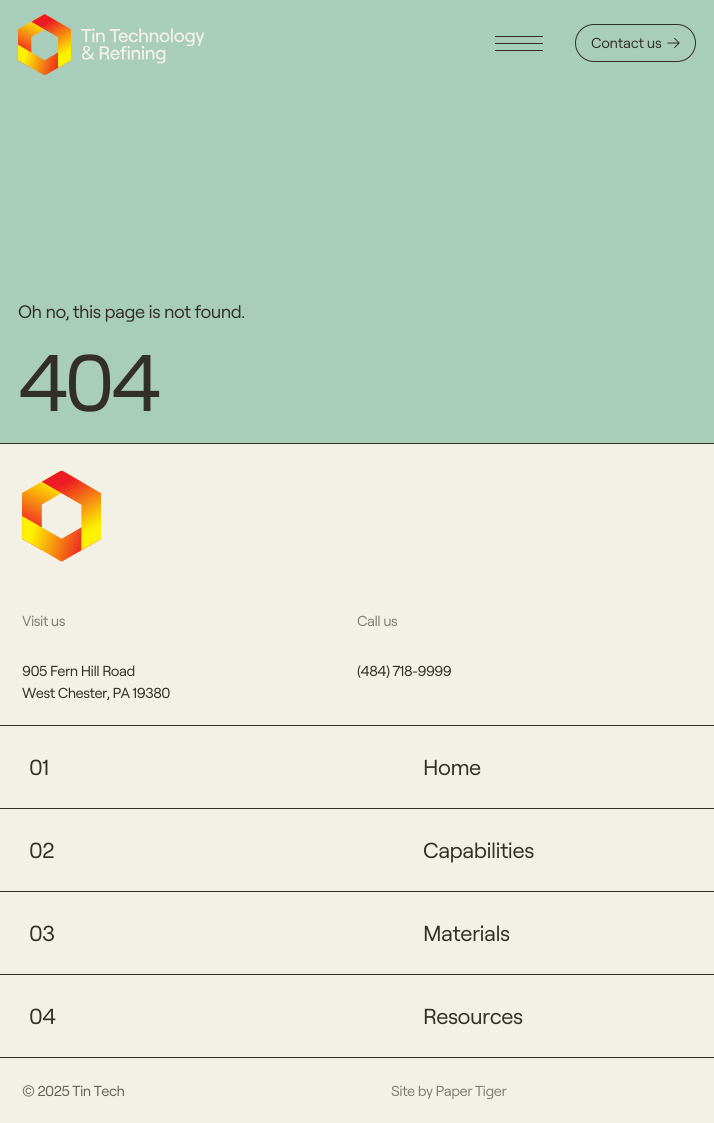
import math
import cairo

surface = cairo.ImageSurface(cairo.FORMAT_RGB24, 714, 1123)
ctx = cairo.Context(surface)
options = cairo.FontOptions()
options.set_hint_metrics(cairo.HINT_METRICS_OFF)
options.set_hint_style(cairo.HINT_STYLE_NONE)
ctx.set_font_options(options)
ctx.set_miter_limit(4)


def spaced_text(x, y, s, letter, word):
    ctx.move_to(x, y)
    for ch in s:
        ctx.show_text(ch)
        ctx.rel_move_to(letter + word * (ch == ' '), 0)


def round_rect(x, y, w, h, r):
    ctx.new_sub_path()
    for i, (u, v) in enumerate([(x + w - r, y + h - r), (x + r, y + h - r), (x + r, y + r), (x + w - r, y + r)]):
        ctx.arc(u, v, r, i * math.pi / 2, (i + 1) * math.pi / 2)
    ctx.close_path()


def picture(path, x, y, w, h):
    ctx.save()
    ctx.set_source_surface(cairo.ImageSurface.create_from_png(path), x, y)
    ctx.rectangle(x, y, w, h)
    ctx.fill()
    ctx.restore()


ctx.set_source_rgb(0.659, 0.804, 0.733)
ctx.paint()
picture("img1.png", 18, 14, 187, 62)
ctx.set_source_rgb(0.2, 0.18, 0.157)
ctx.rectangle(495, 36, 48, 1)
ctx.fill()
ctx.rectangle(495, 43, 48, 1)
ctx.fill()
ctx.rectangle(495, 50, 48, 1)
ctx.fill()
round_rect(575.5, 24.5, 120, 37, 18.5)
ctx.set_line_width(1)
ctx.stroke()
ctx.select_font_face("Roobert")
ctx.set_font_size(14.5)
spaced_text(591, 48, "Contact us", -0.25, 0)
picture("img2.png", 667, 38, 13, 10)
ctx.set_font_size(18.1)
spaced_text(18, 318, "Oh no, this page is not found.", -0.5, 0)
ctx.set_font_size(80)
spaced_text(18, 411, "404", -4, 0)
ctx.set_source_rgb(0.953, 0.945, 0.902)
ctx.rectangle(0, 444, 714, 679)
ctx.fill()
ctx.set_source_rgb(0.2, 0.18, 0.157)
ctx.rectangle(0, 443, 714, 1)
ctx.fill()
picture("img3.png", 22, 470, 79, 92)
ctx.set_font_size(14.5)
ctx.set_source_rgb(0.502, 0.486, 0.455)
spaced_text(22, 626, "Visit us", -0.5, 0)
ctx.set_source_rgb(0.2, 0.18, 0.157)
spaced_text(22, 676, "905 Fern Hill Road", -0.5, 0)
spaced_text(22, 698, "West Chester, PA 19380", -0.5, 0)
ctx.set_source_rgb(0.502, 0.486, 0.455)
spaced_text(357, 626, "Call us", -0.5, 0)
ctx.set_source_rgb(0.2, 0.18, 0.157)
spaced_text(357, 676, "(484) 718-9999", -0.5, 0)
ctx.rectangle(0, 725, 714, 1)
ctx.fill()
ctx.set_font_size(21.75)
spaced_text(29, 775, "01", -0.5, 0)
spaced_text(423, 775, "Home", -0.5, 0)
ctx.rectangle(0, 808, 714, 1)
ctx.fill()
spaced_text(29, 858, "02", -0.5, 0)
spaced_text(423, 858, "Capabilities", -0.5, 0)
ctx.rectangle(0, 891, 714, 1)
ctx.fill()
spaced_text(29, 941, "03", -0.5, 0)
spaced_text(423, 941, "Materials", -0.5, 0)
ctx.rectangle(0, 974, 714, 1)
ctx.fill()
spaced_text(29, 1024, "04", -0.5, 0)
spaced_text(423, 1024, "Resources", -0.5, 0)
ctx.rectangle(0, 1057, 714, 1)
ctx.fill()
ctx.set_font_size(14.5)
ctx.set_source_rgb(0.38, 0.376, 0.361)
spaced_text(22, 1096, "© 2025 Tin Tech", -0.5, 0)
ctx.set_source_rgb(0.502, 0.486, 0.455)
spaced_text(391, 1096, "Site by Paper Tiger", -0.5, 0)
surface.write_to_png("page.png")
